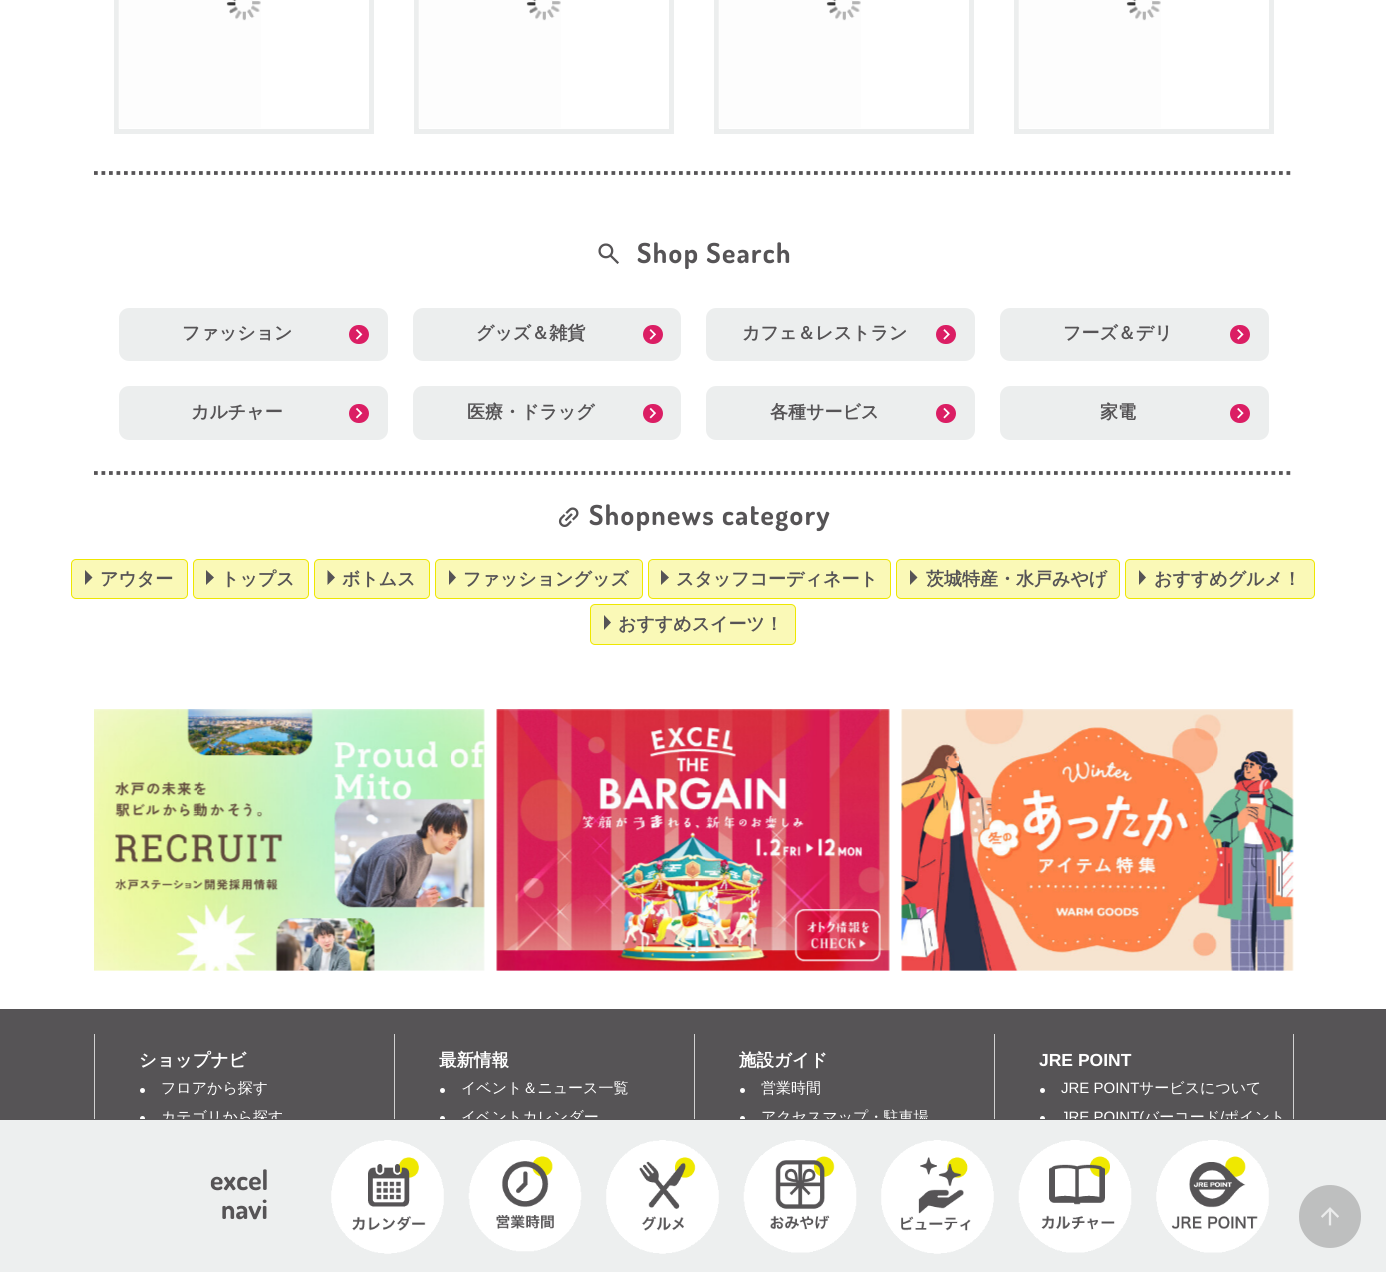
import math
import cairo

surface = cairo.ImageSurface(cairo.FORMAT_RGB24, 1386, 1272)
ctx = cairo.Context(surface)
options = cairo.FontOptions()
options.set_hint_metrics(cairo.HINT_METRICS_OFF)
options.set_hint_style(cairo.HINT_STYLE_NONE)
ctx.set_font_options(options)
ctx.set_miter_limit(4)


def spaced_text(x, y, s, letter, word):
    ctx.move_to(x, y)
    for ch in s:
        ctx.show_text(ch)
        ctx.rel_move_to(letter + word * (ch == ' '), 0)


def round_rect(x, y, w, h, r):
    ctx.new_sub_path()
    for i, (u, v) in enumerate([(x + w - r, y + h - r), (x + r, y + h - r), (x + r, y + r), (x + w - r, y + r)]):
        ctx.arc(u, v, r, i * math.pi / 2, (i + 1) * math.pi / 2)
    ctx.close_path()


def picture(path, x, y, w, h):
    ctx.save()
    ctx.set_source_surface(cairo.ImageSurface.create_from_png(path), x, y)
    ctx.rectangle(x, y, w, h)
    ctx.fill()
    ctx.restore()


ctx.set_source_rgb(1, 1, 1)
ctx.paint()
ctx.new_path()
ctx.move_to(94, 173)
ctx.line_to(1294, 173)
ctx.set_source_rgb(0.337, 0.329, 0.337)
ctx.set_line_width(3.8)
ctx.set_dash([3.75, 3.75])
ctx.stroke()
ctx.rectangle(116.5, -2.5, 255, 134)
ctx.set_source_rgb(0.925, 0.933, 0.933)
ctx.set_line_width(5)
ctx.set_dash([])
ctx.stroke()
picture("img1.png", 118, 0, 143, 128)
ctx.rectangle(416.5, -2.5, 255, 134)
ctx.stroke()
picture("img1.png", 418, 0, 143, 128)
ctx.rectangle(716.5, -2.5, 255, 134)
ctx.stroke()
picture("img1.png", 718, 0, 143, 128)
ctx.rectangle(1016.5, -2.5, 255, 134)
ctx.stroke()
picture("img1.png", 1018, 0, 143, 128)
picture("img2.png", 598, 243, 21, 21)
ctx.select_font_face("Dosis", cairo.FONT_SLANT_NORMAL, cairo.FONT_WEIGHT_BOLD)
ctx.set_font_size(27.5)
ctx.set_source_rgb(0.337, 0.329, 0.337)
spaced_text(637, 263, "Shop Search", 1.4, 0)
ctx.new_path()
ctx.move_to(94, 473)
ctx.line_to(1294, 473)
ctx.set_line_width(3.8)
ctx.set_dash([3.75, 3.75])
ctx.stroke()
ctx.set_source_rgb(0.925, 0.933, 0.933)
round_rect(119, 308, 269, 53, 10)
ctx.fill()
ctx.select_font_face("WenQuanYi Zen Hei", cairo.FONT_SLANT_NORMAL, cairo.FONT_WEIGHT_BOLD)
ctx.set_font_size(18)
ctx.set_source_rgb(0.337, 0.329, 0.337)
ctx.move_to(182, 339)
ctx.show_text("ファッション")
ctx.set_source_rgb(0.859, 0.118, 0.392)
round_rect(349, 325, 20, 19, 9.5)
ctx.fill()
picture("img3.png", 355, 329, 8, 11)
ctx.set_source_rgb(0.925, 0.933, 0.933)
round_rect(413, 308, 268, 53, 10)
ctx.fill()
ctx.set_source_rgb(0.337, 0.329, 0.337)
ctx.move_to(476, 339)
ctx.show_text("グッズ＆雑貨")
ctx.set_source_rgb(0.859, 0.118, 0.392)
round_rect(643, 325, 20, 19, 9.5)
ctx.fill()
picture("img4.png", 649, 329, 7, 11)
ctx.set_source_rgb(0.925, 0.933, 0.933)
round_rect(706, 308, 269, 53, 10)
ctx.fill()
ctx.set_source_rgb(0.337, 0.329, 0.337)
ctx.move_to(742, 339)
ctx.show_text("カフェ＆レストラン")
ctx.set_source_rgb(0.859, 0.118, 0.392)
round_rect(936, 325, 20, 19, 9.5)
ctx.fill()
picture("img5.png", 943, 329, 7, 11)
ctx.set_source_rgb(0.925, 0.933, 0.933)
round_rect(1000, 308, 269, 53, 10)
ctx.fill()
ctx.set_source_rgb(0.337, 0.329, 0.337)
ctx.move_to(1063, 339)
ctx.show_text("フーズ＆デリ")
ctx.set_source_rgb(0.859, 0.118, 0.392)
round_rect(1230, 325, 20, 19, 9.5)
ctx.fill()
picture("img6.png", 1237, 329, 7, 11)
ctx.set_source_rgb(0.925, 0.933, 0.933)
round_rect(119, 386, 269, 54, 10)
ctx.fill()
ctx.set_source_rgb(0.337, 0.329, 0.337)
ctx.move_to(191, 418)
ctx.show_text("カルチャー")
ctx.set_source_rgb(0.859, 0.118, 0.392)
round_rect(349, 404, 20, 19, 9.5)
ctx.fill()
picture("img7.png", 355, 407, 8, 12)
ctx.set_source_rgb(0.925, 0.933, 0.933)
round_rect(413, 386, 268, 54, 10)
ctx.fill()
ctx.set_source_rgb(0.337, 0.329, 0.337)
ctx.move_to(467, 418)
ctx.show_text("医療・ドラッグ")
ctx.set_source_rgb(0.859, 0.118, 0.392)
round_rect(643, 404, 20, 19, 9.5)
ctx.fill()
picture("img8.png", 649, 407, 7, 12)
ctx.set_source_rgb(0.925, 0.933, 0.933)
round_rect(706, 386, 269, 54, 10)
ctx.fill()
ctx.set_source_rgb(0.337, 0.329, 0.337)
ctx.move_to(770, 418)
ctx.show_text("各種サービス")
ctx.set_source_rgb(0.859, 0.118, 0.392)
round_rect(936, 404, 20, 19, 9.5)
ctx.fill()
picture("img9.png", 943, 407, 7, 12)
ctx.set_source_rgb(0.925, 0.933, 0.933)
round_rect(1000, 386, 269, 54, 10)
ctx.fill()
ctx.set_source_rgb(0.337, 0.329, 0.337)
ctx.move_to(1100, 418)
ctx.show_text("家電")
ctx.set_source_rgb(0.859, 0.118, 0.392)
round_rect(1230, 404, 20, 19, 9.5)
ctx.fill()
picture("img10.png", 1237, 407, 7, 12)
picture("img11.png", 558, 507, 21, 20)
ctx.select_font_face("Dosis", cairo.FONT_SLANT_NORMAL, cairo.FONT_WEIGHT_BOLD)
ctx.set_font_size(27.5)
ctx.set_source_rgb(0.337, 0.329, 0.337)
spaced_text(589, 525, "Shopnews category", 1.4, 0)
ctx.set_source_rgb(0.98, 0.973, 0.718)
round_rect(71.5, 559.5, 116, 39, 4.5)
ctx.fill_preserve()
ctx.set_source_rgb(0.933, 0.906, 0)
ctx.set_line_width(1)
ctx.set_dash([])
ctx.stroke()
ctx.set_source_rgb(0.337, 0.329, 0.337)
ctx.new_path()
ctx.move_to(85, 585)
ctx.line_to(85, 570)
ctx.line_to(92.5, 577.5)
ctx.close_path()
ctx.fill()
ctx.select_font_face("WenQuanYi Zen Hei", cairo.FONT_SLANT_NORMAL, cairo.FONT_WEIGHT_BOLD)
ctx.set_font_size(18)
ctx.move_to(100, 585)
ctx.show_text("アウター")
ctx.set_source_rgb(0.98, 0.973, 0.718)
round_rect(193.5, 559.5, 115, 39, 4.5)
ctx.fill_preserve()
ctx.set_source_rgb(0.933, 0.906, 0)
ctx.stroke()
ctx.set_source_rgb(0.337, 0.329, 0.337)
ctx.new_path()
ctx.move_to(206, 585)
ctx.line_to(206, 570)
ctx.line_to(214, 577.5)
ctx.close_path()
ctx.fill()
ctx.move_to(221, 585)
ctx.show_text("トップス")
ctx.set_source_rgb(0.98, 0.973, 0.718)
round_rect(314.5, 559.5, 115, 39, 4.5)
ctx.fill_preserve()
ctx.set_source_rgb(0.933, 0.906, 0)
ctx.stroke()
ctx.set_source_rgb(0.337, 0.329, 0.337)
ctx.new_path()
ctx.move_to(327.5, 585)
ctx.line_to(327.5, 570)
ctx.line_to(335, 577.5)
ctx.close_path()
ctx.fill()
ctx.move_to(342, 585)
ctx.show_text("ボトムス")
ctx.set_source_rgb(0.98, 0.973, 0.718)
round_rect(435.5, 559.5, 207, 39, 4.5)
ctx.fill_preserve()
ctx.set_source_rgb(0.933, 0.906, 0)
ctx.stroke()
ctx.set_source_rgb(0.337, 0.329, 0.337)
ctx.new_path()
ctx.move_to(449, 585)
ctx.line_to(449, 570)
ctx.line_to(456, 577.5)
ctx.close_path()
ctx.fill()
ctx.move_to(463, 585)
ctx.show_text("ファッショングッズ")
ctx.set_source_rgb(0.98, 0.973, 0.718)
round_rect(648.5, 559.5, 242, 39, 4.5)
ctx.fill_preserve()
ctx.set_source_rgb(0.933, 0.906, 0)
ctx.stroke()
ctx.set_source_rgb(0.337, 0.329, 0.337)
ctx.new_path()
ctx.move_to(661, 585)
ctx.line_to(661, 570)
ctx.line_to(669, 577.5)
ctx.close_path()
ctx.fill()
ctx.move_to(676, 585)
ctx.show_text("スタッフコーディネート")
ctx.set_source_rgb(0.98, 0.973, 0.718)
round_rect(896.5, 559.5, 223, 39, 4.5)
ctx.fill_preserve()
ctx.set_source_rgb(0.933, 0.906, 0)
ctx.stroke()
ctx.set_source_rgb(0.337, 0.329, 0.337)
ctx.new_path()
ctx.move_to(910, 585)
ctx.line_to(910, 570)
ctx.line_to(917.5, 577.5)
ctx.close_path()
ctx.fill()
ctx.move_to(926, 585)
ctx.show_text("茨城特産・水戸みやげ")
ctx.set_source_rgb(0.98, 0.973, 0.718)
round_rect(1125.5, 559.5, 189, 39, 4.5)
ctx.fill_preserve()
ctx.set_source_rgb(0.933, 0.906, 0)
ctx.stroke()
ctx.set_source_rgb(0.337, 0.329, 0.337)
ctx.new_path()
ctx.move_to(1139, 585)
ctx.line_to(1139, 570)
ctx.line_to(1146, 577.5)
ctx.close_path()
ctx.fill()
ctx.move_to(1154, 585)
ctx.show_text("おすすめグルメ！")
ctx.set_source_rgb(0.98, 0.973, 0.718)
round_rect(590.5, 604.5, 205, 40, 4.5)
ctx.fill_preserve()
ctx.set_source_rgb(0.933, 0.906, 0)
ctx.stroke()
ctx.set_source_rgb(0.337, 0.329, 0.337)
ctx.new_path()
ctx.move_to(604, 630)
ctx.line_to(604, 615)
ctx.line_to(611, 622.5)
ctx.close_path()
ctx.fill()
ctx.move_to(618, 630)
ctx.show_text("おすすめスイーツ！")
picture("img12.png", 94, 709, 391, 262)
picture("img13.png", 496, 709, 394, 262)
picture("img14.png", 901, 709, 393, 262)
ctx.rectangle(0, 1009, 1386, 110)
ctx.fill()
ctx.set_source_rgb(0.82, 0.82, 0.82)
ctx.rectangle(94, 1034, 1, 85)
ctx.fill()
ctx.set_font_size(17.5)
ctx.set_source_rgb(1, 1, 1)
ctx.move_to(139, 1066)
ctx.show_text("ショップナビ")
ctx.new_path()
ctx.arc(142.5, 1090.5, 2.5, 0, 2 * math.pi)
ctx.fill()
ctx.select_font_face("WenQuanYi Zen Hei Medium")
ctx.set_font_size(15)
ctx.move_to(161, 1093)
ctx.show_text("フロアから探す")
ctx.new_path()
ctx.arc(142.5, 1118.5, 2.5, 0, 2 * math.pi)
ctx.fill()
ctx.move_to(161, 1122)
ctx.show_text("カテゴリから探す")
ctx.set_source_rgb(0.82, 0.82, 0.82)
ctx.rectangle(394, 1034, 1, 85)
ctx.fill()
ctx.select_font_face("WenQuanYi Zen Hei", cairo.FONT_SLANT_NORMAL, cairo.FONT_WEIGHT_BOLD)
ctx.set_font_size(17.5)
ctx.set_source_rgb(1, 1, 1)
ctx.move_to(439, 1066)
ctx.show_text("最新情報")
ctx.new_path()
ctx.arc(442.5, 1090.5, 2.5, 0, 2 * math.pi)
ctx.fill()
ctx.select_font_face("WenQuanYi Zen Hei Medium")
ctx.set_font_size(15)
ctx.move_to(461, 1093)
ctx.show_text("イベント＆ニュース一覧")
ctx.new_path()
ctx.arc(442.5, 1118.5, 2.5, 0, 2 * math.pi)
ctx.fill()
ctx.move_to(461, 1122)
ctx.show_text("イベントカレンダー")
ctx.set_source_rgb(0.82, 0.82, 0.82)
ctx.rectangle(694, 1034, 1, 85)
ctx.fill()
ctx.select_font_face("WenQuanYi Zen Hei", cairo.FONT_SLANT_NORMAL, cairo.FONT_WEIGHT_BOLD)
ctx.set_font_size(17.5)
ctx.set_source_rgb(1, 1, 1)
ctx.move_to(739, 1066)
ctx.show_text("施設ガイド")
ctx.new_path()
ctx.arc(742.5, 1090.5, 2.5, 0, 2 * math.pi)
ctx.fill()
ctx.select_font_face("WenQuanYi Zen Hei Medium")
ctx.set_font_size(15)
ctx.move_to(761, 1093)
ctx.show_text("営業時間")
ctx.new_path()
ctx.arc(742.5, 1118.5, 2.5, 0, 2 * math.pi)
ctx.fill()
ctx.move_to(761, 1122)
ctx.show_text("アクセスマップ・駐車場")
ctx.set_source_rgb(0.82, 0.82, 0.82)
ctx.rectangle(1293, 1034, 1, 85)
ctx.fill()
ctx.rectangle(994, 1034, 1, 85)
ctx.fill()
ctx.select_font_face("Liberation Sans", cairo.FONT_SLANT_NORMAL, cairo.FONT_WEIGHT_BOLD)
ctx.set_font_size(17.5)
ctx.set_source_rgb(1, 1, 1)
ctx.move_to(1039, 1066)
ctx.show_text("JRE POINT")
ctx.new_path()
ctx.arc(1042.5, 1090.5, 2.5, 0, 2 * math.pi)
ctx.fill()
ctx.select_font_face("Liberation Sans")
ctx.set_font_size(15)
ctx.move_to(1061, 1093)
ctx.show_text("JRE POINT")
ctx.select_font_face("WenQuanYi Zen Hei Medium")
ctx.move_to(1139, 1093)
ctx.show_text("サービスについて")
ctx.new_path()
ctx.arc(1042.5, 1118.5, 2.5, 0, 2 * math.pi)
ctx.fill()
ctx.select_font_face("Liberation Sans")
ctx.move_to(1061, 1122)
ctx.show_text("JRE POINT(")
ctx.select_font_face("WenQuanYi Zen Hei Medium")
ctx.move_to(1144, 1122)
ctx.show_text("バーコード")
ctx.select_font_face("Liberation Sans")
ctx.move_to(1220, 1122)
ctx.show_text("/")
ctx.select_font_face("WenQuanYi Zen Hei Medium")
ctx.move_to(1224, 1122)
ctx.show_text("ポイント")
ctx.set_source_rgb(0.929, 0.937, 0.937)
ctx.rectangle(0, 1120, 1386, 152)
ctx.fill()
ctx.set_source_rgb(0.337, 0.329, 0.337)
ctx.rectangle(0, 1119, 1386, 1)
ctx.fill()
ctx.select_font_face("Dosis", cairo.FONT_SLANT_NORMAL, cairo.FONT_WEIGHT_BOLD)
ctx.set_font_size(27.5)
ctx.move_to(210, 1190)
ctx.show_text("excel")
ctx.move_to(221, 1219)
ctx.show_text("navi")
picture("img15.png", 331, 1140, 113, 114)
picture("img16.png", 468, 1140, 114, 112)
picture("img17.png", 606, 1140, 113, 114)
picture("img18.png", 743, 1140, 114, 113)
picture("img19.png", 881, 1140, 113, 114)
picture("img20.png", 1018, 1140, 114, 113)
picture("img21.png", 1156, 1140, 113, 113)
ctx.set_source_rgb(0.745, 0.749, 0.749)
round_rect(1299, 1185, 62, 63, 31)
ctx.fill()
picture("img22.png", 1321, 1207, 18, 19)
surface.write_to_png("page.png")
